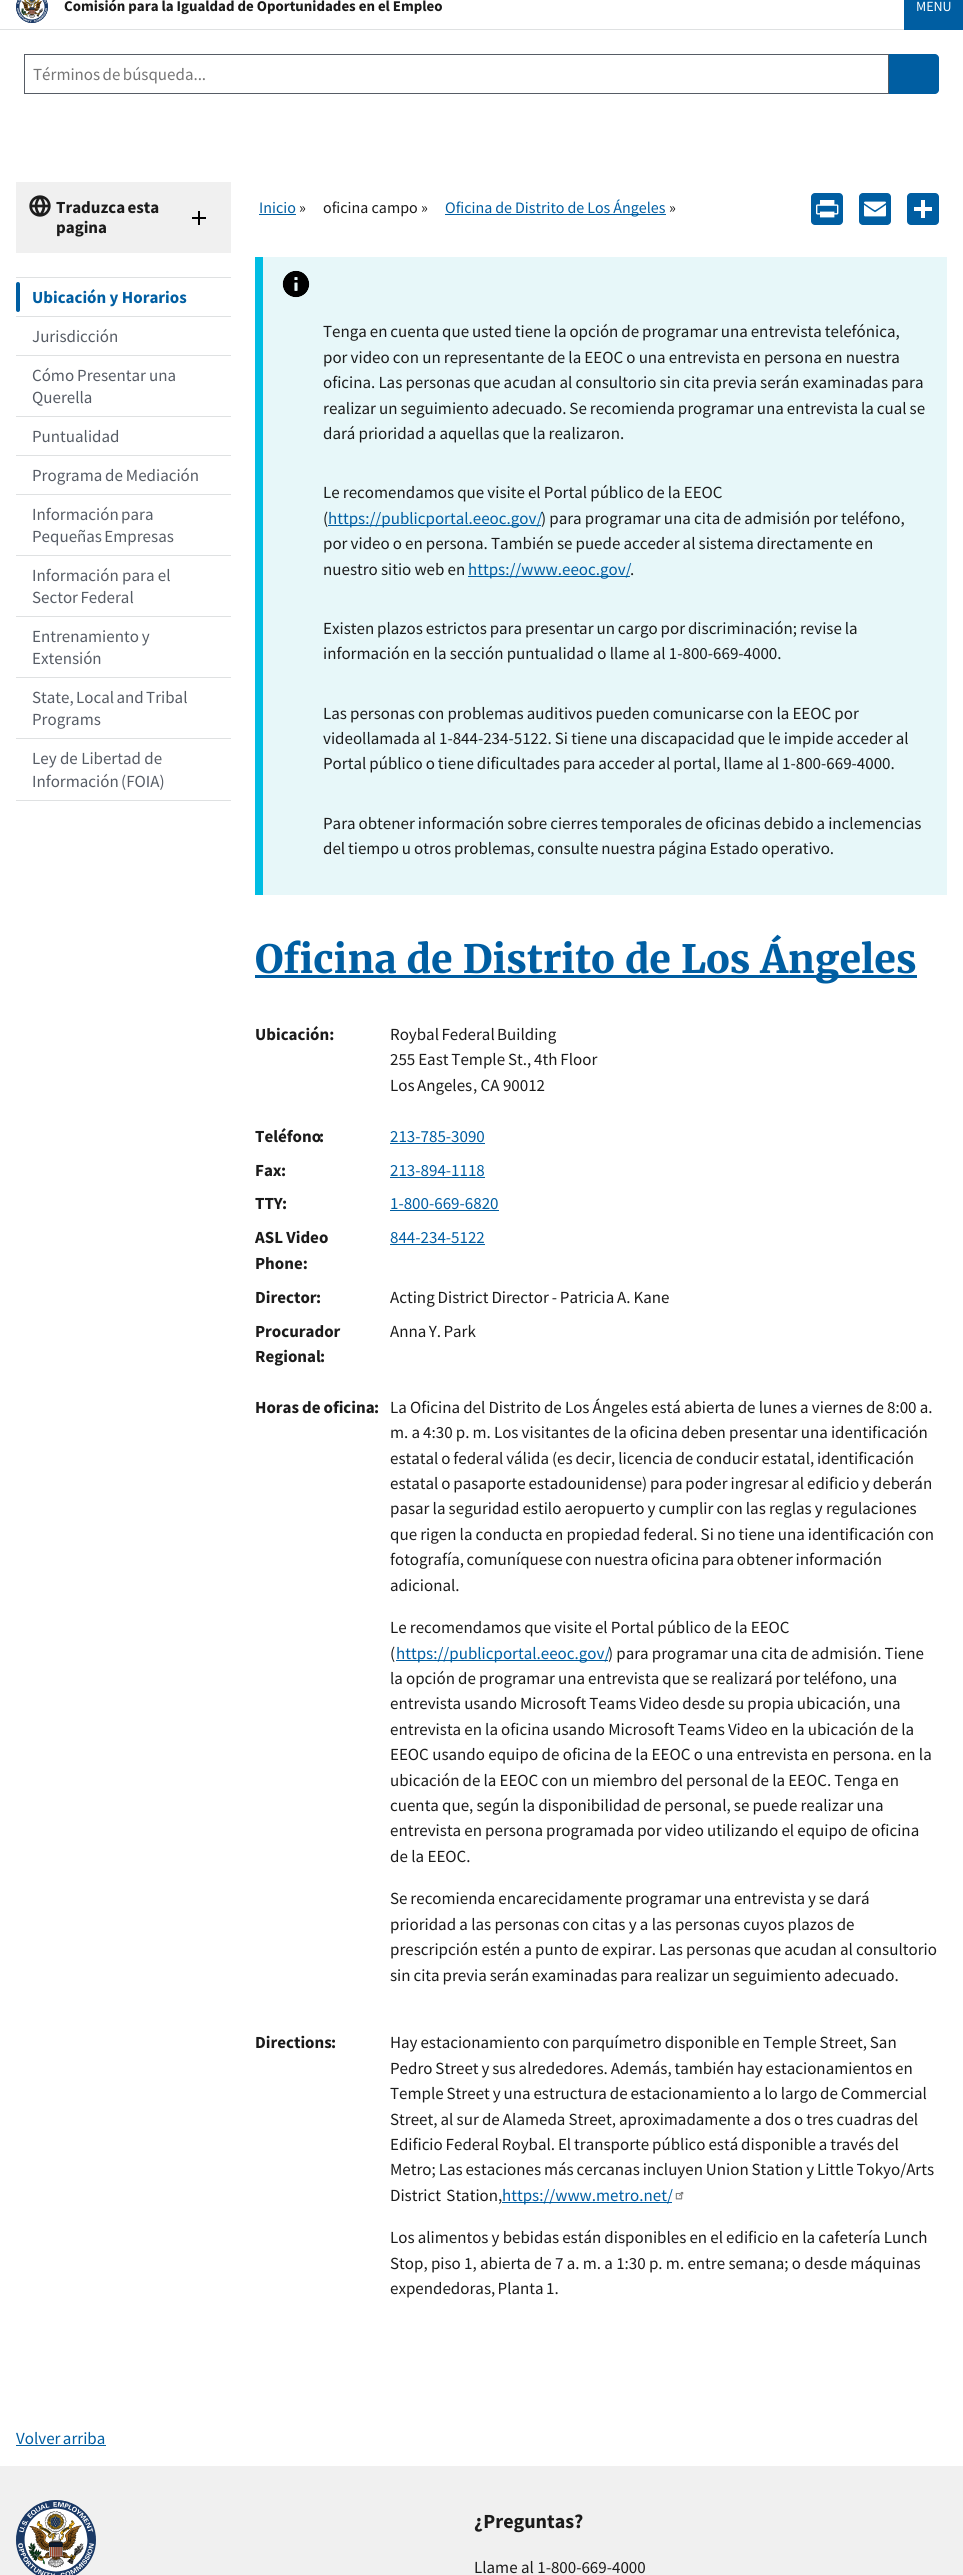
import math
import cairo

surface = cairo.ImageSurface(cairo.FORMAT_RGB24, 963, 2575)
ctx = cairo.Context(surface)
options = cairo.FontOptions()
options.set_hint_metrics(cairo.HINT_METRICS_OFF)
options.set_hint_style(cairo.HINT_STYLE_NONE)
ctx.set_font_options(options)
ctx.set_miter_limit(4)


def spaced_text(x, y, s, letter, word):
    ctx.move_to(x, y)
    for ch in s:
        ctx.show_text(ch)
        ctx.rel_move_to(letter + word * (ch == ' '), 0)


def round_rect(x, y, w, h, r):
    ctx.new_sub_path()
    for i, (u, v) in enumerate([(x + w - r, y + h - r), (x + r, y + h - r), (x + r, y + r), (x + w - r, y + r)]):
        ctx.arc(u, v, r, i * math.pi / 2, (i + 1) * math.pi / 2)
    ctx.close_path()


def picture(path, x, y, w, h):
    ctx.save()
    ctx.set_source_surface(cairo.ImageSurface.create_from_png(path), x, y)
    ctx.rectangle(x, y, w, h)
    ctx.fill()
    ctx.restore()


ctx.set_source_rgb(1, 1, 1)
ctx.paint()
ctx.set_source_rgb(0.875, 0.882, 0.886)
ctx.rectangle(0, 29, 904, 1)
ctx.fill()
picture("img1.png", 16, 0, 32, 23)
ctx.select_font_face("Source Sans Pro", cairo.FONT_SLANT_NORMAL, cairo.FONT_WEIGHT_BOLD)
ctx.set_font_size(14.9)
ctx.set_source_rgb(0.106, 0.106, 0.106)
ctx.move_to(64, 11)
ctx.show_text("Comisión para la Igualdad de Oportunidades en el Empleo")
ctx.set_source_rgb(0, 0.369, 0.635)
ctx.rectangle(904, 0, 59, 30)
ctx.fill()
ctx.select_font_face("Source Sans Pro")
ctx.set_font_size(14)
ctx.set_source_rgb(1, 1, 1)
ctx.move_to(916, 11)
ctx.show_text("MENU")
ctx.rectangle(24.5, 54.5, 864, 39)
ctx.set_source_rgb(0.337, 0.361, 0.396)
ctx.set_line_width(1)
ctx.stroke()
ctx.set_font_size(16.95)
ctx.set_source_rgb(0.459, 0.459, 0.459)
spaced_text(33, 80, "Términos de búsqueda...", 0, -1)
ctx.set_source_rgb(0, 0.369, 0.635)
ctx.new_path()
ctx.move_to(889, 54)
ctx.line_to(935, 54)
ctx.curve_to(937, 54, 939, 56, 939, 58)
ctx.line_to(939, 90)
ctx.curve_to(939, 92, 937, 94, 935, 94)
ctx.line_to(889, 94)
ctx.close_path()
ctx.fill()
ctx.set_source_rgb(0.941, 0.941, 0.941)
ctx.rectangle(16, 182, 215, 71)
ctx.fill()
picture("img2.png", 192, 211, 14, 14)
picture("img3.png", 29, 195, 22, 22)
ctx.select_font_face("Source Sans Pro", cairo.FONT_SLANT_NORMAL, cairo.FONT_WEIGHT_BOLD)
ctx.set_source_rgb(0.106, 0.106, 0.106)
spaced_text(56, 213, "Traduzca esta", 0, -1)
ctx.move_to(56, 233)
ctx.show_text("pagina")
ctx.set_source_rgb(0.875, 0.882, 0.886)
ctx.rectangle(16, 800, 215, 1)
ctx.fill()
ctx.rectangle(16, 277, 215, 1)
ctx.fill()
ctx.set_source_rgb(0, 0.369, 0.635)
round_rect(16, 282, 4, 30, 2)
ctx.fill()
ctx.move_to(32, 303)
ctx.show_text("Ubicación y Horarios")
ctx.set_source_rgb(0.875, 0.882, 0.886)
ctx.rectangle(16, 316, 215, 1)
ctx.fill()
ctx.select_font_face("Source Sans Pro")
ctx.set_source_rgb(0.337, 0.361, 0.396)
ctx.move_to(32, 342)
ctx.show_text("Jurisdicción")
ctx.set_source_rgb(0.875, 0.882, 0.886)
ctx.rectangle(16, 355, 215, 1)
ctx.fill()
ctx.set_source_rgb(0.337, 0.361, 0.396)
spaced_text(32, 381, "Cómo Presentar una", 0, -0.4)
ctx.move_to(32, 403)
ctx.show_text("Querella")
ctx.set_source_rgb(0.875, 0.882, 0.886)
ctx.rectangle(16, 416, 215, 1)
ctx.fill()
ctx.set_source_rgb(0.337, 0.361, 0.396)
ctx.move_to(32, 442)
ctx.show_text("Puntualidad")
ctx.set_source_rgb(0.875, 0.882, 0.886)
ctx.rectangle(16, 455, 215, 1)
ctx.fill()
ctx.set_source_rgb(0.337, 0.361, 0.396)
spaced_text(32, 481, "Programa de Mediación", 0, -0.5)
ctx.set_source_rgb(0.875, 0.882, 0.886)
ctx.rectangle(16, 494, 215, 1)
ctx.fill()
ctx.set_source_rgb(0.337, 0.361, 0.396)
spaced_text(32, 520, "Información para", 0, -1)
spaced_text(32, 542, "Pequeñas Empresas", 0, -1)
ctx.set_source_rgb(0.875, 0.882, 0.886)
ctx.rectangle(16, 555, 215, 1)
ctx.fill()
ctx.set_source_rgb(0.337, 0.361, 0.396)
ctx.move_to(32, 581)
ctx.show_text("Información para el")
spaced_text(32, 603, "Sector Federal", 0, -1)
ctx.set_source_rgb(0.875, 0.882, 0.886)
ctx.rectangle(16, 616, 215, 1)
ctx.fill()
ctx.set_source_rgb(0.337, 0.361, 0.396)
spaced_text(32, 642, "Entrenamiento y", 0, -0.5)
ctx.move_to(32, 664)
ctx.show_text("Extensión")
ctx.set_source_rgb(0.875, 0.882, 0.886)
ctx.rectangle(16, 677, 215, 1)
ctx.fill()
ctx.set_source_rgb(0.337, 0.361, 0.396)
spaced_text(32, 703, "State, Local and Tribal", 0, -1)
ctx.move_to(32, 725)
ctx.show_text("Programs")
ctx.set_source_rgb(0.875, 0.882, 0.886)
ctx.rectangle(16, 738, 215, 1)
ctx.fill()
ctx.set_source_rgb(0.337, 0.361, 0.396)
ctx.move_to(32, 764)
ctx.show_text("Ley de Libertad de")
spaced_text(32, 787, "Información (FOIA)", 0, -1)
ctx.set_font_size(16)
ctx.set_source_rgb(0, 0.369, 0.635)
ctx.move_to(259, 213)
ctx.show_text("Inicio")
ctx.rectangle(259, 214, 37, 1)
ctx.fill()
ctx.set_source_rgb(0.106, 0.106, 0.106)
ctx.move_to(299, 213)
ctx.show_text("»")
ctx.move_to(323, 213)
ctx.show_text("oficina campo »")
ctx.set_source_rgb(0, 0.369, 0.635)
ctx.rectangle(445, 214, 221, 1)
ctx.fill()
spaced_text(445, 213, "Oficina de Distrito de Los Ángeles", 0, -0.25)
ctx.set_source_rgb(0.106, 0.106, 0.106)
ctx.move_to(669, 213)
ctx.show_text("»")
ctx.set_source_rgb(0, 0.369, 0.635)
round_rect(811, 193, 32, 32, 4)
ctx.fill()
picture("img4.png", 816, 200, 23, 18)
round_rect(859, 193, 32, 32, 4)
ctx.fill()
picture("img5.png", 864, 201, 22, 16)
round_rect(907, 193, 32, 32, 4)
ctx.fill()
ctx.set_source_rgb(1, 1, 1)
ctx.rectangle(921, 200, 4, 18)
ctx.fill()
ctx.rectangle(914, 207, 18, 4)
ctx.fill()
ctx.set_source_rgb(0.906, 0.965, 0.973)
ctx.rectangle(263, 257, 684, 638)
ctx.fill()
ctx.set_source_rgb(0, 0.741, 0.89)
ctx.rectangle(255, 257, 8, 638)
ctx.fill()
picture("img6.png", 282, 270, 28, 28)
ctx.set_font_size(16.95)
ctx.set_source_rgb(0.106, 0.106, 0.106)
spaced_text(323, 337, "Tenga en cuenta que usted tiene la opción de programar una entrevista telefónica,", 0, -0.5)
spaced_text(323, 363, "por video con un representante de la EEOC o una entrevista en persona en nuestra", 0, -0.25)
spaced_text(323, 388, "oficina. Las personas que acudan al consultorio sin cita previa serán examinadas para", 0, -0.25)
spaced_text(323, 414, "realizar un seguimiento adecuado. Se recomienda programar una entrevista la cual se", 0, -0.4)
spaced_text(323, 439, "dará prioridad a aquellas que la realizaron.", 0, -0.25)
spaced_text(323, 498, "Le recomendamos que visite el Portal público de la EEOC", 0, -0.25)
ctx.move_to(323, 524)
ctx.show_text("(")
ctx.set_source_rgb(0, 0.369, 0.635)
ctx.rectangle(328, 525, 213, 1)
ctx.fill()
ctx.move_to(328, 524)
ctx.show_text("https://publicportal.eeoc.gov/")
ctx.set_source_rgb(0.106, 0.106, 0.106)
spaced_text(541, 524, ") para programar una cita de admisión por teléfono,", 0, -0.25)
spaced_text(323, 549, "por video o en persona. También se puede acceder al sistema directamente en", 0, -0.3)
spaced_text(323, 575, "nuestro sitio web en", 0, -0.25)
ctx.set_source_rgb(0, 0.369, 0.635)
ctx.rectangle(468, 576, 162, 1)
ctx.fill()
ctx.move_to(468, 575)
ctx.show_text("https://www.eeoc.gov/")
ctx.set_source_rgb(0.106, 0.106, 0.106)
ctx.move_to(630, 575)
ctx.show_text(".")
spaced_text(323, 634, "Existen plazos estrictos para presentar un cargo por discriminación; revise la", 0, -0.5)
spaced_text(323, 659, "información en la sección puntualidad o llame al 1-800-669-4000.", 0, -0.1)
spaced_text(323, 719, "Las personas con problemas auditivos pueden comunicarse con la EEOC por", 0, -0.25)
spaced_text(323, 744, "videollamada al 1-844-234-5122. Si tiene una discapacidad que le impide acceder al", 0, -0.25)
spaced_text(323, 769, "Portal público o tiene dificultades para acceder al portal, llame al 1-800-669-4000.", 0, -0.4)
spaced_text(323, 829, "Para obtener información sobre cierres temporales de oficinas debido a inclemencias", 0, -0.4)
spaced_text(323, 854, "del tiempo u otros problemas, consulte nuestra página Estado operativo.", 0, -0.5)
ctx.set_source_rgb(0, 0.369, 0.635)
ctx.rectangle(255, 975, 662, 3)
ctx.fill()
ctx.select_font_face("Merriweather", cairo.FONT_SLANT_NORMAL, cairo.FONT_WEIGHT_BOLD)
ctx.set_font_size(39)
ctx.move_to(255, 973)
ctx.show_text("Oficina de Distrito de Los Ángeles")
ctx.select_font_face("Source Sans Pro", cairo.FONT_SLANT_NORMAL, cairo.FONT_WEIGHT_BOLD)
ctx.set_font_size(16.95)
ctx.set_source_rgb(0.106, 0.106, 0.106)
ctx.move_to(255, 1040)
ctx.show_text("Ubicación:")
ctx.select_font_face("Source Sans Pro")
spaced_text(390, 1040, "Roybal Federal Building", 0, -1)
spaced_text(390, 1065, "255 East Temple St., 4th Floor", 0, -0.5)
spaced_text(390, 1091, "Los Angeles", 0, -1)
ctx.move_to(473, 1091)
ctx.show_text(", CA 90012")
ctx.select_font_face("Source Sans Pro", cairo.FONT_SLANT_NORMAL, cairo.FONT_WEIGHT_BOLD)
ctx.move_to(255, 1142)
ctx.show_text("Teléfono")
ctx.move_to(319, 1142)
ctx.show_text(":")
ctx.select_font_face("Source Sans Pro")
ctx.set_source_rgb(0, 0.369, 0.635)
ctx.move_to(390, 1142)
ctx.show_text("213-785-3090")
ctx.rectangle(390, 1143, 95, 1)
ctx.fill()
ctx.select_font_face("Source Sans Pro", cairo.FONT_SLANT_NORMAL, cairo.FONT_WEIGHT_BOLD)
ctx.set_source_rgb(0.106, 0.106, 0.106)
ctx.move_to(255, 1176)
ctx.show_text("Fax")
ctx.move_to(281, 1176)
ctx.show_text(":")
ctx.select_font_face("Source Sans Pro")
ctx.set_source_rgb(0, 0.369, 0.635)
ctx.move_to(390, 1176)
ctx.show_text("213-894-1118")
ctx.rectangle(390, 1177, 95, 1)
ctx.fill()
ctx.select_font_face("Source Sans Pro", cairo.FONT_SLANT_NORMAL, cairo.FONT_WEIGHT_BOLD)
ctx.set_source_rgb(0.106, 0.106, 0.106)
ctx.move_to(255, 1209)
ctx.show_text("TTY")
ctx.move_to(282, 1209)
ctx.show_text(":")
ctx.select_font_face("Source Sans Pro")
ctx.set_source_rgb(0, 0.369, 0.635)
ctx.move_to(390, 1209)
ctx.show_text("1-800-669-6820")
ctx.rectangle(390, 1210, 109, 1)
ctx.fill()
ctx.select_font_face("Source Sans Pro", cairo.FONT_SLANT_NORMAL, cairo.FONT_WEIGHT_BOLD)
ctx.set_source_rgb(0.106, 0.106, 0.106)
ctx.move_to(255, 1243)
ctx.show_text("ASL Video")
ctx.move_to(255, 1269)
ctx.show_text("Phone:")
ctx.select_font_face("Source Sans Pro")
ctx.set_source_rgb(0, 0.369, 0.635)
ctx.move_to(390, 1243)
ctx.show_text("844-234-5122")
ctx.rectangle(390, 1244, 95, 1)
ctx.fill()
ctx.select_font_face("Source Sans Pro", cairo.FONT_SLANT_NORMAL, cairo.FONT_WEIGHT_BOLD)
ctx.set_source_rgb(0.106, 0.106, 0.106)
ctx.move_to(255, 1303)
ctx.show_text("Director")
ctx.move_to(316, 1303)
ctx.show_text(":")
ctx.select_font_face("Source Sans Pro")
spaced_text(390, 1303, "Acting District Director - Patricia A. Kane", 0, -0.5)
ctx.select_font_face("Source Sans Pro", cairo.FONT_SLANT_NORMAL, cairo.FONT_WEIGHT_BOLD)
ctx.move_to(255, 1337)
ctx.show_text("Procurador")
ctx.move_to(255, 1362)
ctx.show_text("Regional")
ctx.move_to(320, 1362)
ctx.show_text(":")
ctx.select_font_face("Source Sans Pro")
spaced_text(390, 1337, "Anna Y. Park", 0, -1)
ctx.select_font_face("Source Sans Pro", cairo.FONT_SLANT_NORMAL, cairo.FONT_WEIGHT_BOLD)
spaced_text(255, 1413, "Horas de oficina", 0, -0.4)
ctx.move_to(374, 1413)
ctx.show_text(":")
ctx.select_font_face("Source Sans Pro")
spaced_text(390, 1413, "La Oficina del Distrito de Los Ángeles está abierta de lunes a viernes de 8:00 a.", 0, -0.25)
spaced_text(390, 1438, "m. a 4:30 p. m. Los visitantes de la oficina deben presentar una identificación", 0, -0.25)
spaced_text(390, 1464, "estatal o federal válida (es decir, licencia de conducir estatal, identificación", 0, -0.5)
spaced_text(390, 1489, "estatal o pasaporte estadounidense) para poder ingresar al edificio y deberán", 0, -0.5)
spaced_text(390, 1514, "pasar la seguridad estilo aeropuerto y cumplir con las reglas y regulaciones", 0, -0.25)
spaced_text(390, 1540, "que rigen la conducta en propiedad federal. Si no tiene una identificación con", 0, -0.25)
spaced_text(390, 1565, "fotografía, comuníquese con nuestra oficina para obtener información", 0, -0.75)
ctx.move_to(390, 1591)
ctx.show_text("adicional.")
spaced_text(390, 1633, "Le recomendamos que visite el Portal público de la EEOC", 0, -0.25)
ctx.move_to(390, 1659)
ctx.show_text("(")
ctx.set_source_rgb(0, 0.369, 0.635)
ctx.rectangle(396, 1660, 212, 1)
ctx.fill()
ctx.move_to(396, 1659)
ctx.show_text("https://publicportal.eeoc.gov/")
ctx.set_source_rgb(0.106, 0.106, 0.106)
spaced_text(608, 1659, ") para programar una cita de admisión. Tiene", 0, -0.25)
spaced_text(390, 1684, "la opción de programar una entrevista que se realizará por teléfono, una", 0, -0.3)
spaced_text(390, 1709, "entrevista usando Microsoft Teams Video desde su propia ubicación, una", 0, -0.4)
spaced_text(390, 1735, "entrevista en la oficina usando Microsoft Teams Video en la ubicación de la", 0, -0.25)
ctx.move_to(390, 1760)
ctx.show_text("EEOC usando equipo de oficina de la EEOC o una entrevista en persona. en la")
spaced_text(390, 1786, "ubicación de la EEOC con un miembro del personal de la EEOC. Tenga en", 0, -0.25)
spaced_text(390, 1811, "cuenta que, según la disponibilidad de personal, se puede realizar una", 0, -0.25)
spaced_text(390, 1836, "entrevista en persona programada por video utilizando el equipo de oficina", 0, -0.25)
ctx.move_to(390, 1862)
ctx.show_text("de la EEOC.")
spaced_text(390, 1904, "Se recomienda encarecidamente programar una entrevista y se dará", 0, -0.5)
spaced_text(390, 1930, "prioridad a las personas con citas y a las personas cuyos plazos de", 0, -0.1)
spaced_text(390, 1955, "prescripción estén a punto de expirar. Las personas que acudan al consultorio", 0, -0.3)
spaced_text(390, 1981, "sin cita previa serán examinadas para realizar un seguimiento adecuado.", 0, -0.5)
ctx.select_font_face("Source Sans Pro", cairo.FONT_SLANT_NORMAL, cairo.FONT_WEIGHT_BOLD)
ctx.move_to(255, 2048)
ctx.show_text("Directions")
ctx.move_to(331, 2048)
ctx.show_text(":")
ctx.select_font_face("Source Sans Pro")
spaced_text(390, 2048, "Hay estacionamiento con parquímetro disponible en Temple Street, San", 0, -0.5)
spaced_text(390, 2074, "Pedro Street y sus alrededores. Además, también hay estacionamientos en", 0, -0.5)
spaced_text(390, 2099, "Temple Street y una estructura de estacionamiento a lo largo de Commercial", 0, -0.5)
spaced_text(390, 2125, "Street, al sur de Alameda Street, aproximadamente a dos o tres cuadras del", 0, -0.25)
spaced_text(390, 2150, "Edificio Federal Roybal. El transporte público está disponible a través del", 0, -0.5)
spaced_text(390, 2175, "Metro; Las estaciones más cercanas incluyen Union Station y Little Tokyo/Arts", 0, -0.5)
spaced_text(390, 2201, "District Station,", 0, 2)
ctx.set_source_rgb(0, 0.369, 0.635)
ctx.rectangle(502, 2202, 170, 1)
ctx.fill()
ctx.move_to(502, 2201)
ctx.show_text("https://www.metro.net/")
picture("img7.png", 675, 2191, 9, 9)
ctx.set_source_rgb(0.106, 0.106, 0.106)
spaced_text(390, 2243, "Los alimentos y bebidas están disponibles en el edificio en la cafetería Lunch", 0, -0.25)
spaced_text(390, 2269, "Stop, piso 1, abierta de 7 a. m. a 1:30 p. m. entre semana; o desde máquinas", 0, -0.1)
spaced_text(390, 2294, "expendedoras, Planta 1.", 0, -1)
ctx.set_source_rgb(0, 0.369, 0.635)
spaced_text(16, 2444, "Volver arriba", 0, -1)
ctx.rectangle(16, 2445, 90, 1)
ctx.fill()
ctx.set_source_rgb(0.941, 0.941, 0.941)
ctx.rectangle(0, 2466, 963, 109)
ctx.fill()
picture("img8.png", 16, 2500, 80, 75)
ctx.select_font_face("Source Sans Pro", cairo.FONT_SLANT_NORMAL, cairo.FONT_WEIGHT_BOLD)
ctx.set_font_size(20)
ctx.set_source_rgb(0.106, 0.106, 0.106)
ctx.move_to(474, 2528)
ctx.show_text("¿Preguntas?")
ctx.select_font_face("Source Sans Pro")
ctx.set_font_size(16.95)
ctx.move_to(474, 2573)
ctx.show_text("Llame al 1-800-669-4000")
surface.write_to_png("page.png")
